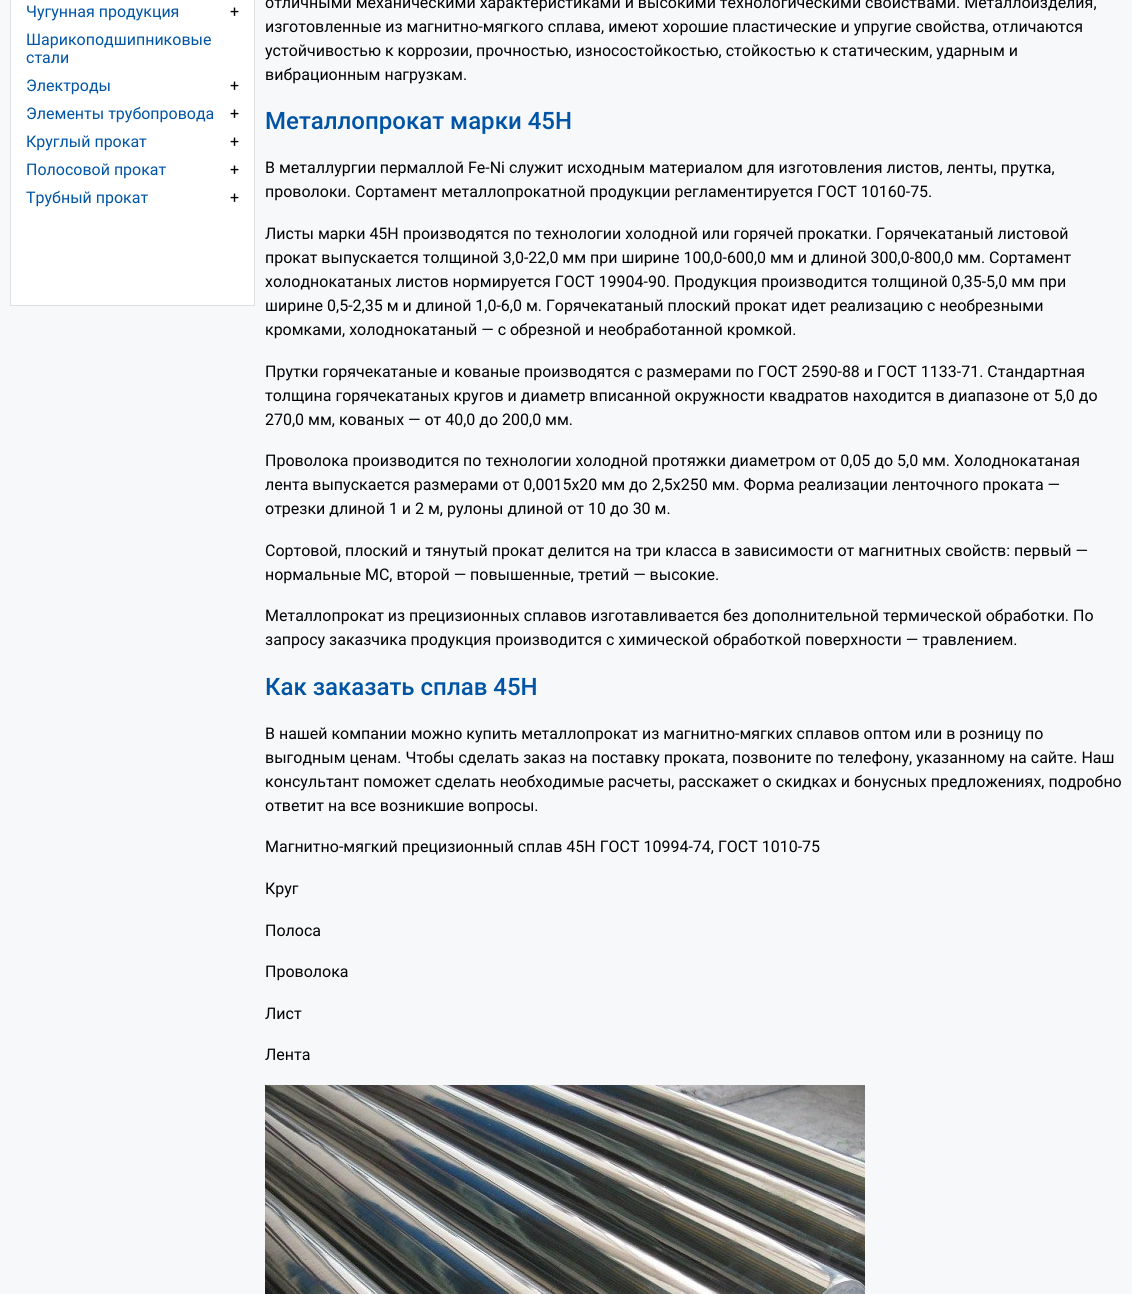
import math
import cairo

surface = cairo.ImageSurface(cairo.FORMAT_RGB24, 1132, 1294)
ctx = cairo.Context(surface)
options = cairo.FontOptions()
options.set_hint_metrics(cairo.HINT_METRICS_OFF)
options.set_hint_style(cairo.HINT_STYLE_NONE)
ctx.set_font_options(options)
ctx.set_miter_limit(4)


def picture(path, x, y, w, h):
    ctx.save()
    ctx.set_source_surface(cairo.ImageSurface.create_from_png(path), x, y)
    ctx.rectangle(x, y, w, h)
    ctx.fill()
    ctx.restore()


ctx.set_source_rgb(0.961, 0.969, 0.976)
ctx.paint()
ctx.set_source_rgb(1, 1, 1)
ctx.rectangle(10.5, -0.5, 244, 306)
ctx.fill_preserve()
ctx.set_source_rgb(0.875, 0.875, 0.875)
ctx.set_line_width(1)
ctx.stroke()
ctx.select_font_face("Roboto")
ctx.set_font_size(16)
ctx.set_source_rgb(0, 0.329, 0.647)
ctx.move_to(26, 17)
ctx.show_text("Чугунная продукция")
ctx.set_source_rgb(0, 0, 0)
ctx.move_to(230, 17)
ctx.show_text("+")
ctx.set_source_rgb(0, 0.329, 0.647)
ctx.move_to(26, 45)
ctx.show_text("Шарикоподшипниковые")
ctx.move_to(26, 63)
ctx.show_text("стали")
ctx.move_to(26, 91)
ctx.show_text("Электроды")
ctx.set_source_rgb(0, 0, 0)
ctx.move_to(230, 91)
ctx.show_text("+")
ctx.set_source_rgb(0, 0.329, 0.647)
ctx.move_to(26, 119)
ctx.show_text("Элементы трубопровода")
ctx.set_source_rgb(0, 0, 0)
ctx.move_to(230, 119)
ctx.show_text("+")
ctx.set_source_rgb(0, 0.329, 0.647)
ctx.move_to(26, 147)
ctx.show_text("Круглый прокат")
ctx.set_source_rgb(0, 0, 0)
ctx.move_to(230, 147)
ctx.show_text("+")
ctx.set_source_rgb(0, 0.329, 0.647)
ctx.move_to(26, 175)
ctx.show_text("Полосовой прокат")
ctx.set_source_rgb(0, 0, 0)
ctx.move_to(230, 175)
ctx.show_text("+")
ctx.set_source_rgb(0, 0.329, 0.647)
ctx.move_to(26, 203)
ctx.show_text("Трубный прокат")
ctx.set_source_rgb(0, 0, 0)
ctx.move_to(230, 203)
ctx.show_text("+")
ctx.move_to(265, 8)
ctx.show_text("отличными механическими характеристиками и высокими технологическими свойствами. Металлоизделия,")
ctx.move_to(265, 32)
ctx.show_text("изготовленные из магнитно-мягкого сплава, имеют хорошие пластические и упругие свойства, отличаются")
ctx.move_to(265, 56)
ctx.show_text("устойчивостью к коррозии, прочностью, износостойкостью, стойкостью к статическим, ударным и")
ctx.move_to(265, 80)
ctx.show_text("вибрационным нагрузкам.")
ctx.select_font_face("Roboto Medium")
ctx.set_font_size(24)
ctx.set_source_rgb(0, 0.329, 0.647)
ctx.move_to(265, 129)
ctx.show_text("Металлопрокат марки 45H")
ctx.select_font_face("Roboto")
ctx.set_font_size(16)
ctx.set_source_rgb(0, 0, 0)
ctx.move_to(265, 173)
ctx.show_text("В металлургии пермаллой Fe-Ni служит исходным материалом для изготовления листов, ленты, прутка,")
ctx.move_to(265, 197)
ctx.show_text("проволоки. Сортамент металлопрокатной продукции регламентируется ГОСТ 10160-75.")
ctx.move_to(265, 239)
ctx.show_text("Листы марки 45H производятся по технологии холодной или горячей прокатки. Горячекатаный листовой")
ctx.move_to(265, 263)
ctx.show_text("прокат выпускается толщиной 3,0-22,0 мм при ширине 100,0-600,0 мм и длиной 300,0-800,0 мм. Сортамент")
ctx.move_to(265, 287)
ctx.show_text("холоднокатаных листов нормируется ГОСТ 19904-90. Продукция производится толщиной 0,35-5,0 мм при")
ctx.move_to(265, 311)
ctx.show_text("ширине 0,5-2,35 м и длиной 1,0-6,0 м. Горячекатаный плоский прокат идет реализацию с необрезными")
ctx.move_to(265, 335)
ctx.show_text("кромками, холоднокатаный — с обрезной и необработанной кромкой.")
ctx.move_to(265, 377)
ctx.show_text("Прутки горячекатаные и кованые производятся с размерами по ГОСТ 2590-88 и ГОСТ 1133-71. Стандартная")
ctx.move_to(265, 401)
ctx.show_text("толщина горячекатаных кругов и диаметр вписанной окружности квадратов находится в диапазоне от 5,0 до")
ctx.move_to(265, 425)
ctx.show_text("270,0 мм, кованых — от 40,0 до 200,0 мм.")
ctx.move_to(265, 466)
ctx.show_text("Проволока производится по технологии холодной протяжки диаметром от 0,05 до 5,0 мм. Холоднокатаная")
ctx.move_to(265, 490)
ctx.show_text("лента выпускается размерами от 0,0015x20 мм до 2,5x250 мм. Форма реализации ленточного проката —")
ctx.move_to(265, 514)
ctx.show_text("отрезки длиной 1 и 2 м, рулоны длиной от 10 до 30 м.")
ctx.move_to(265, 556)
ctx.show_text("Сортовой, плоский и тянутый прокат делится на три класса в зависимости от магнитных свойств: первый —")
ctx.move_to(265, 580)
ctx.show_text("нормальные MC, второй — повышенные, третий — высокие.")
ctx.move_to(265, 621)
ctx.show_text("Металлопрокат из прецизионных сплавов изготавливается без дополнительной термической обработки. По")
ctx.move_to(265, 645)
ctx.show_text("запросу заказчика продукция производится с химической обработкой поверхности — травлением.")
ctx.select_font_face("Roboto Medium")
ctx.set_font_size(24)
ctx.set_source_rgb(0, 0.329, 0.647)
ctx.move_to(265, 695)
ctx.show_text("Как заказать сплав 45H")
ctx.select_font_face("Roboto")
ctx.set_font_size(16)
ctx.set_source_rgb(0, 0, 0)
ctx.move_to(265, 739)
ctx.show_text("В нашей компании можно купить металлопрокат из магнитно-мягких сплавов оптом или в розницу по")
ctx.move_to(265, 763)
ctx.show_text("выгодным ценам. Чтобы сделать заказ на поставку проката, позвоните по телефону, указанному на сайте. Наш")
ctx.move_to(265, 787)
ctx.show_text("консультант поможет сделать необходимые расчеты, расскажет о скидках и бонусных предложениях, подробно")
ctx.move_to(265, 811)
ctx.show_text("ответит на все возникшие вопросы.")
ctx.move_to(265, 852)
ctx.show_text("Магнитно-мягкий прецизионный сплав 45Н ГОСТ 10994-74, ГОСТ 1010-75")
ctx.move_to(265, 894)
ctx.show_text("Круг")
ctx.move_to(265, 936)
ctx.show_text("Полоса")
ctx.move_to(265, 977)
ctx.show_text("Проволока")
ctx.move_to(265, 1019)
ctx.show_text("Лист")
ctx.move_to(265, 1060)
ctx.show_text("Лента")
picture("img1.png", 265, 1085, 600, 209)
surface.write_to_png("page.png")
